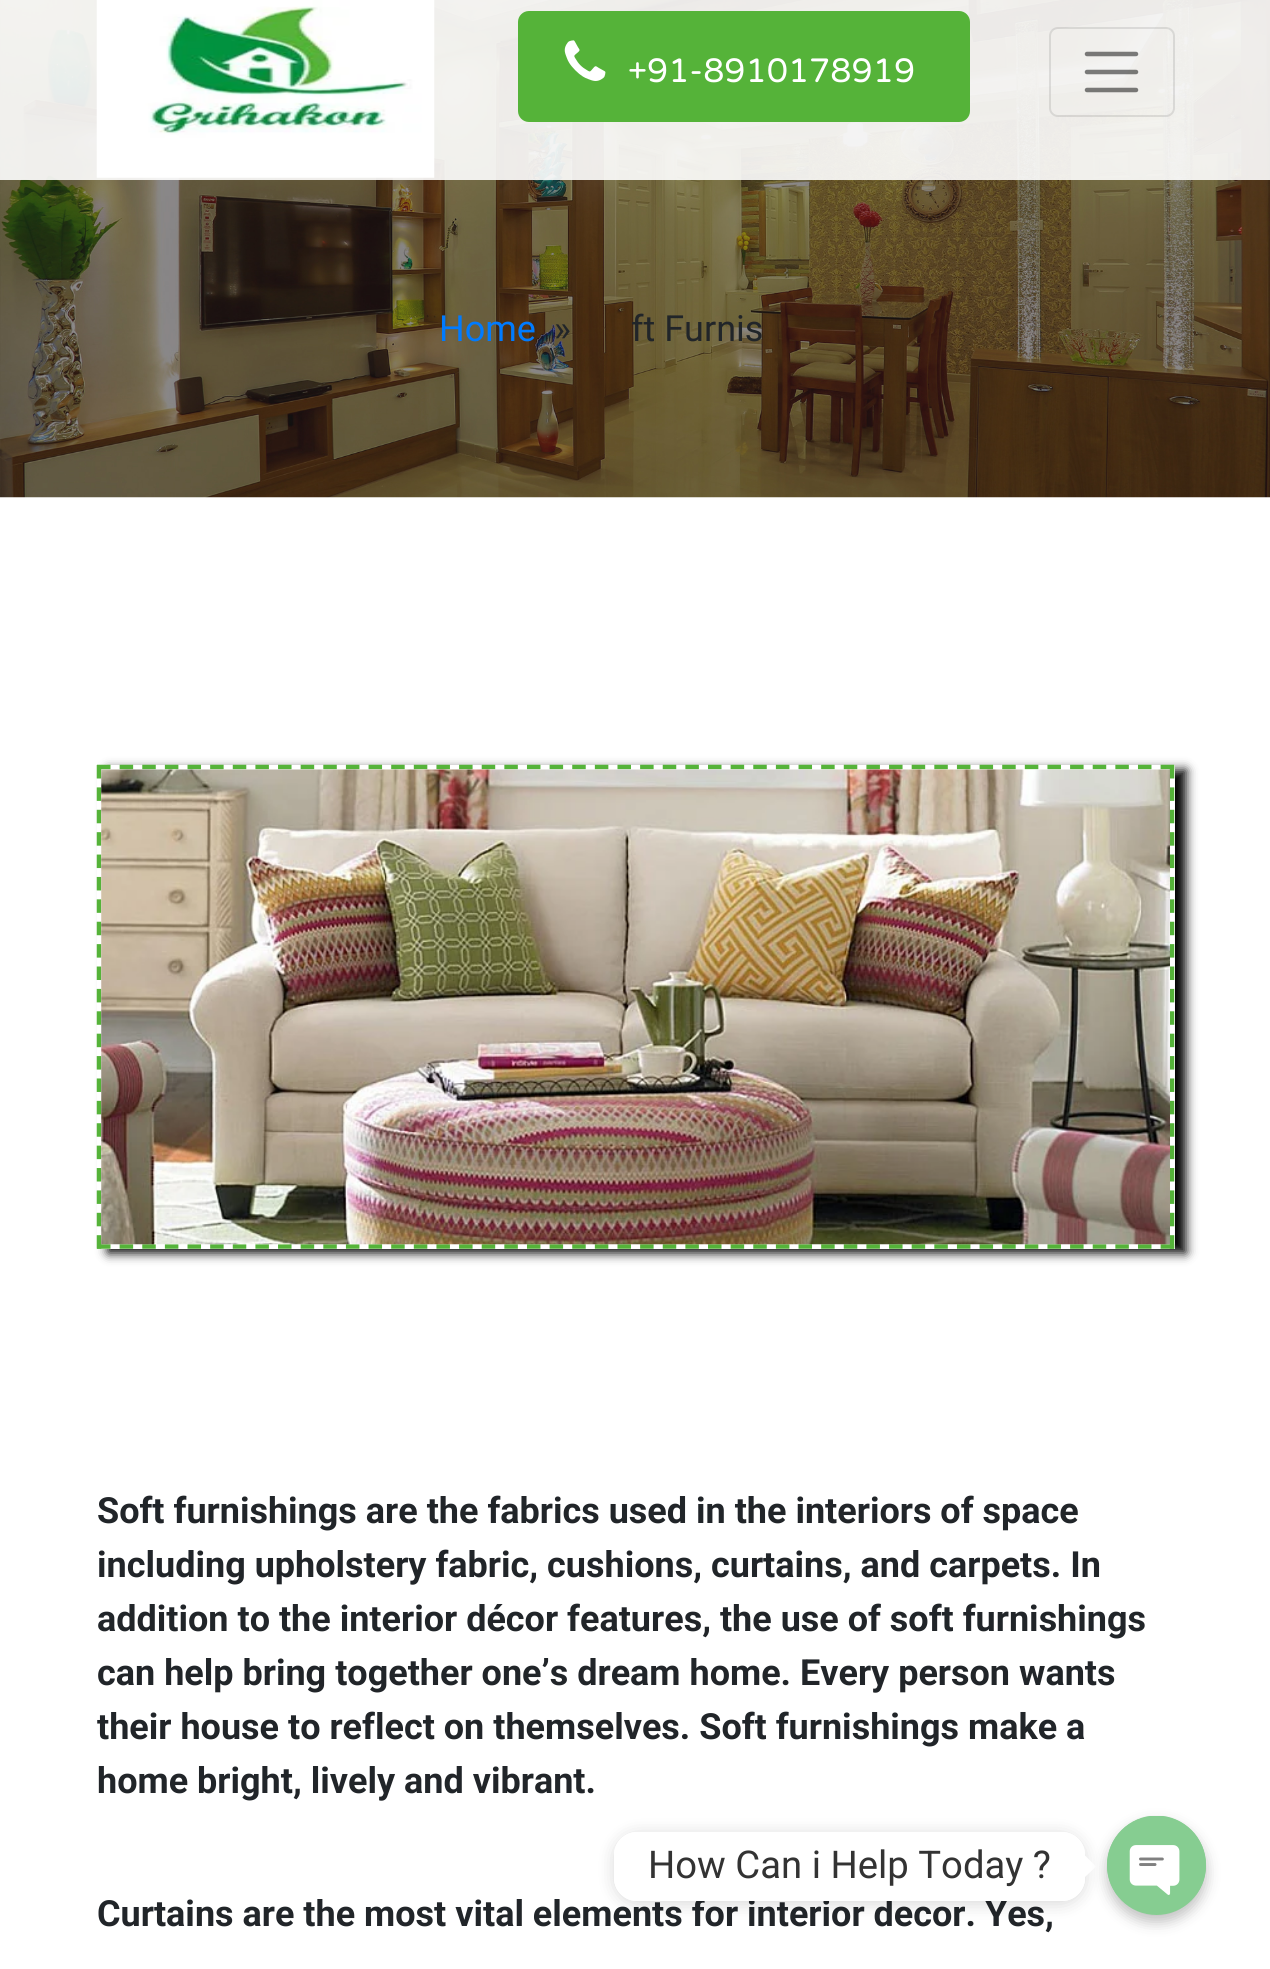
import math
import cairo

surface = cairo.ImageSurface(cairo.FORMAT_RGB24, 1270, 1969)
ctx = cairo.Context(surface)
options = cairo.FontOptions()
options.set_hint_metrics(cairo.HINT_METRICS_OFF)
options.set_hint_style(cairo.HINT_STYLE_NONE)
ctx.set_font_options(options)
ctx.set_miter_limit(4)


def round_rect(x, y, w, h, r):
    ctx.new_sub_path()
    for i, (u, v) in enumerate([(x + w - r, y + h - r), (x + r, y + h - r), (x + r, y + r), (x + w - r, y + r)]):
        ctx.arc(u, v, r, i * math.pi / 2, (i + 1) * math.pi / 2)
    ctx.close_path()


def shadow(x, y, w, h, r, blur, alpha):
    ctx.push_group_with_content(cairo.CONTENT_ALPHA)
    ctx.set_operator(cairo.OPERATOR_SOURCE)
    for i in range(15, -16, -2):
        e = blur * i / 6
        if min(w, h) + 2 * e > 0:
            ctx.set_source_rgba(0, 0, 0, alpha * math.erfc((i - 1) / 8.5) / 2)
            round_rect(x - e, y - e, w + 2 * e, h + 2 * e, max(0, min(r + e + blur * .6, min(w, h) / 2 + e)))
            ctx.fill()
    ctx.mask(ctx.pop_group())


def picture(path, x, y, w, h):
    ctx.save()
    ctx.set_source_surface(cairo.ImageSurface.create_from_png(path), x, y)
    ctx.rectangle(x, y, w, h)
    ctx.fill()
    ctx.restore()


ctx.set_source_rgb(1, 1, 1)
ctx.paint()
picture("img3.png", 0, 0, 1270, 498)
ctx.set_source_rgba(1, 1, 1, 0.9)
ctx.rectangle(0, 0, 1270, 180)
ctx.fill()
picture("img1.png", 96, 0, 339, 178)
ctx.set_source_rgb(0.333, 0.702, 0.224)
round_rect(518, 11, 452, 111, 11)
ctx.fill()
picture("img2.png", 564, 40, 42, 41)
ctx.select_font_face("Varela Round")
ctx.set_font_size(33.75)
ctx.set_source_rgb(1, 1, 1)
ctx.move_to(628, 82)
ctx.show_text("+91-8910178919")
round_rect(1050, 28, 124, 88, 8)
ctx.set_source_rgba(0, 0, 0, 0.1)
ctx.stroke()
ctx.new_path()
ctx.move_to(1087, 54)
ctx.line_to(1136, 54)
ctx.move_to(1087, 72)
ctx.line_to(1136, 72)
ctx.move_to(1087, 90)
ctx.line_to(1136, 90)
ctx.set_source_rgba(0, 0, 0, 0.5)
ctx.set_line_width(4.5)
ctx.set_line_cap(cairo.LINE_CAP_ROUND)
ctx.stroke()
ctx.select_font_face("Roboto")
ctx.set_font_size(36)
ctx.set_source_rgb(0, 0.482, 1)
ctx.move_to(439, 341)
ctx.show_text("Home")
ctx.set_source_rgb(0.129, 0.145, 0.161)
ctx.move_to(554, 341)
ctx.show_text("»")
ctx.move_to(631, 341)
ctx.show_text("ft Furnis")
ctx.save()
ctx.set_fill_rule(cairo.FILL_RULE_EVEN_ODD)
ctx.new_path()
ctx.move_to(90, 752)
ctx.line_to(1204, 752)
ctx.line_to(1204, 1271)
ctx.line_to(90, 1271)
ctx.close_path()
ctx.move_to(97, 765)
ctx.line_to(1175, 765)
ctx.line_to(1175, 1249)
ctx.line_to(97, 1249)
ctx.close_path()
ctx.clip()
ctx.set_source_rgb(0, 0, 0)
shadow(108, 770, 1078, 483, 0, 5.5, 1)
ctx.restore()
ctx.new_path()
ctx.move_to(97, 767)
ctx.line_to(1174.5, 767)
ctx.set_source_rgb(0.333, 0.702, 0.224)
ctx.set_line_cap(cairo.LINE_CAP_BUTT)
ctx.set_dash([13.5, 9.13])
ctx.stroke()
ctx.new_path()
ctx.move_to(1172, 765)
ctx.line_to(1172, 1249)
ctx.set_dash([13.5, 8.89])
ctx.stroke()
ctx.new_path()
ctx.move_to(97, 1246.5)
ctx.line_to(1174.5, 1246.5)
ctx.set_dash([13.5, 9.13])
ctx.stroke()
ctx.new_path()
ctx.move_to(99, 765)
ctx.line_to(99, 1249)
ctx.set_dash([13.5, 8.89])
ctx.stroke()
picture("img4.png", 101, 769, 1069, 476)
ctx.select_font_face("Roboto", cairo.FONT_SLANT_NORMAL, cairo.FONT_WEIGHT_BOLD)
ctx.set_source_rgb(0.129, 0.145, 0.161)
ctx.move_to(97, 1523)
ctx.show_text("Soft furnishings are the fabrics used in the interiors of space")
ctx.move_to(97, 1577)
ctx.show_text("including upholstery fabric, cushions, curtains, and carpets. In")
ctx.move_to(97, 1631)
ctx.show_text("addition to the interior décor features, the use of soft furnishings")
ctx.move_to(97, 1685)
ctx.show_text("can help bring together one’s dream home. Every person wants")
ctx.move_to(97, 1739)
ctx.show_text("their house to reflect on themselves. Soft furnishings make a")
ctx.move_to(97, 1793)
ctx.show_text("home bright, lively and vibrant.")
ctx.move_to(97, 1926)
ctx.show_text("Curtains are the most vital elements for interior decor. Yes,")
ctx.save()
ctx.set_fill_rule(cairo.FILL_RULE_EVEN_ODD)
ctx.new_path()
ctx.move_to(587, 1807)
ctx.line_to(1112, 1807)
ctx.line_to(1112, 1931)
ctx.line_to(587, 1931)
ctx.close_path()
ctx.move_to(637, 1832)
ctx.line_to(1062, 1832)
ctx.curve_to(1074.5, 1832, 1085, 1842.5, 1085, 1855)
ctx.line_to(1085, 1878)
ctx.curve_to(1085, 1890.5, 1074.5, 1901, 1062, 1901)
ctx.line_to(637, 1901)
ctx.curve_to(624.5, 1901, 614, 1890.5, 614, 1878)
ctx.line_to(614, 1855)
ctx.curve_to(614, 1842.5, 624.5, 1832, 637, 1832)
ctx.close_path()
ctx.clip()
ctx.set_source_rgb(0, 0, 0)
shadow(614, 1834, 471, 70, 23, 8.5, 0.15)
ctx.restore()
ctx.set_source_rgb(1, 1, 1)
round_rect(614, 1832, 471, 69, 23)
ctx.fill()
ctx.select_font_face("Roboto")
ctx.set_font_size(38.25)
ctx.set_source_rgb(0.2, 0.2, 0.2)
ctx.move_to(648, 1878)
ctx.show_text("How Can i Help Today ?")
ctx.set_source_rgb(1, 1, 1)
ctx.new_path()
ctx.move_to(1084.5, 1877.5)
ctx.line_to(1084.5, 1855)
ctx.line_to(1096, 1866.5)
ctx.close_path()
ctx.fill()
ctx.set_source_rgb(0, 0, 0)
shadow(1107, 1823, 99, 99, 49.5, 7, 0.25)
ctx.set_source_rgb(0.525, 0.804, 0.569)
ctx.arc(1156.5, 1865.5, 49.5, 0, 2 * math.pi)
ctx.fill()
picture("img5.png", 1107, 1816, 99, 79)
surface.write_to_png("page.png")
